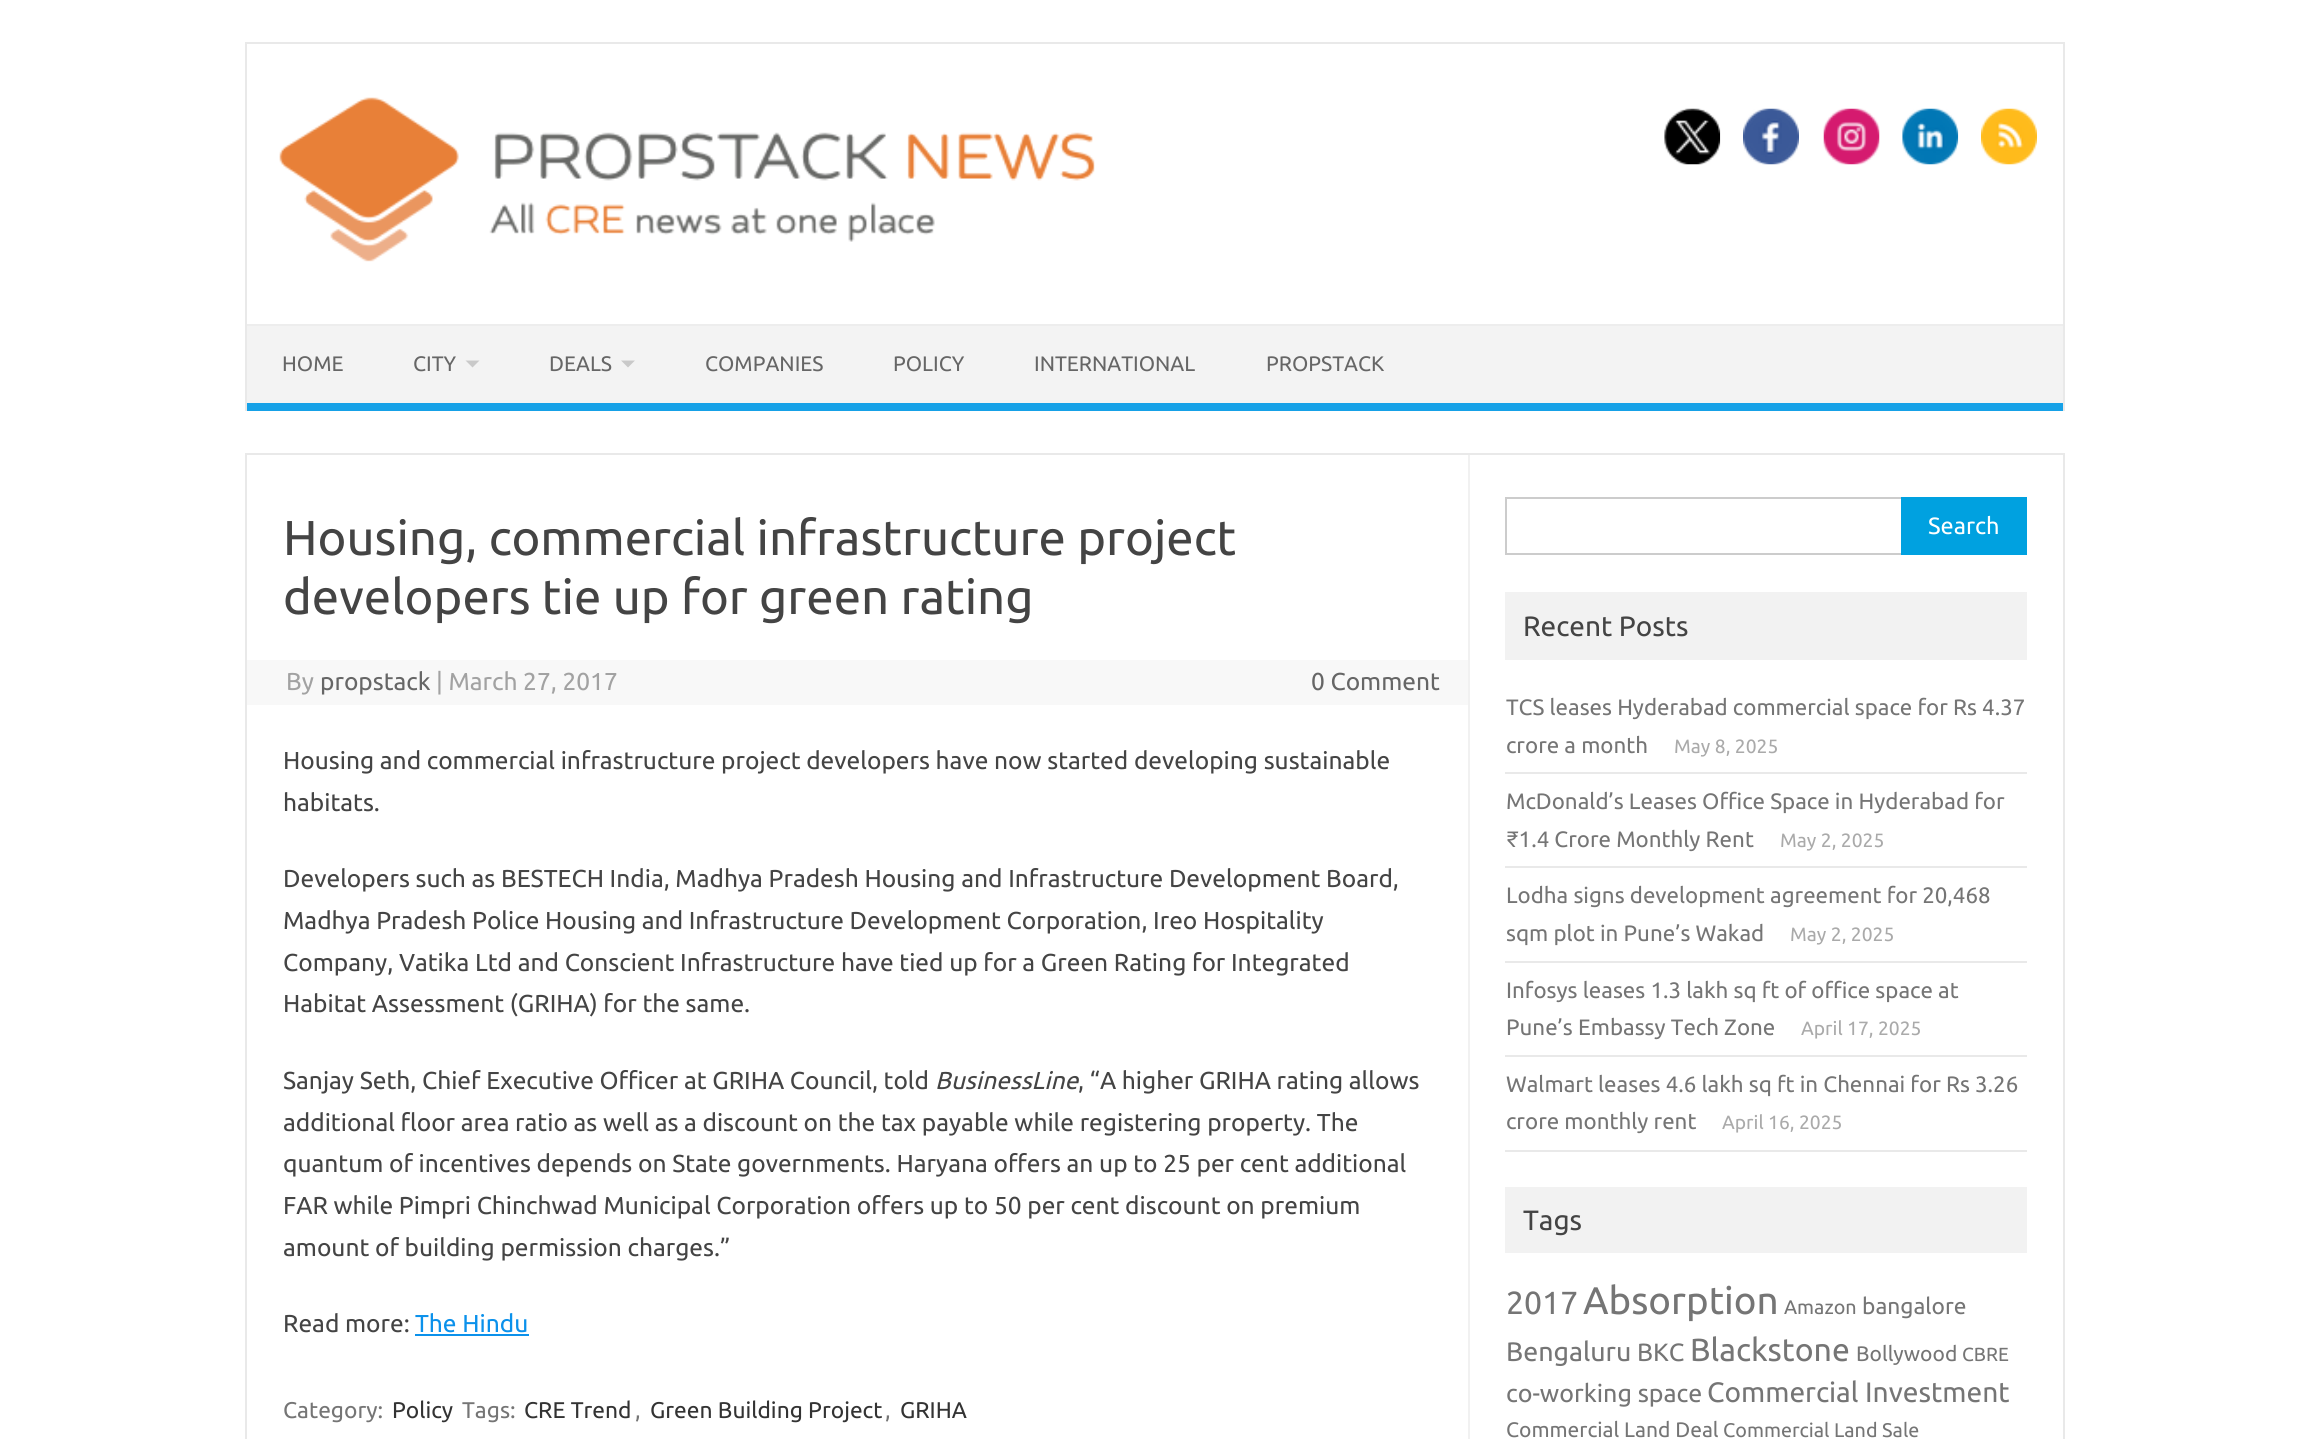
import math
import cairo

surface = cairo.ImageSurface(cairo.FORMAT_RGB24, 2310, 1439)
ctx = cairo.Context(surface)
options = cairo.FontOptions()
options.set_hint_metrics(cairo.HINT_METRICS_OFF)
options.set_hint_style(cairo.HINT_STYLE_NONE)
ctx.set_font_options(options)
ctx.set_miter_limit(4)


def picture(path, x, y, w, h):
    ctx.save()
    ctx.set_source_surface(cairo.ImageSurface.create_from_png(path), x, y)
    ctx.rectangle(x, y, w, h)
    ctx.fill()
    ctx.restore()


ctx.set_source_rgb(1, 1, 1)
ctx.paint()
ctx.set_source_rgb(0.914, 0.914, 0.914)
ctx.rectangle(245, 42, 1820, 2)
ctx.fill()
ctx.rectangle(2063, 42, 2, 369)
ctx.fill()
ctx.rectangle(245, 42, 2, 369)
ctx.fill()
picture("img1.png", 279, 97, 816, 165)
picture("img2.png", 1664, 108, 57, 57)
picture("img3.png", 1743, 108, 56, 57)
picture("img4.png", 1823, 108, 57, 57)
picture("img5.png", 1902, 108, 57, 57)
picture("img6.png", 1981, 108, 56, 57)
ctx.set_source_rgb(0.953, 0.953, 0.953)
ctx.rectangle(247, 326, 1816, 77)
ctx.fill()
ctx.set_source_rgb(0.929, 0.929, 0.929)
ctx.rectangle(247, 324, 1816, 2)
ctx.fill()
ctx.set_source_rgb(0.086, 0.631, 0.906)
ctx.rectangle(247, 403, 1816, 8)
ctx.fill()
ctx.select_font_face("Ubuntu")
ctx.set_font_size(21)
ctx.set_source_rgb(0.4, 0.4, 0.4)
ctx.move_to(282, 371)
ctx.show_text("HOME")
ctx.move_to(413, 371)
ctx.show_text("CITY")
ctx.set_source_rgb(0.788, 0.788, 0.788)
ctx.new_path()
ctx.move_to(465.5, 360.5)
ctx.line_to(479.5, 360.5)
ctx.line_to(472.5, 367.5)
ctx.close_path()
ctx.fill()
ctx.set_source_rgb(0.4, 0.4, 0.4)
ctx.move_to(549, 371)
ctx.show_text("DEALS")
ctx.set_source_rgb(0.788, 0.788, 0.788)
ctx.new_path()
ctx.move_to(621, 360.5)
ctx.line_to(635, 360.5)
ctx.line_to(628, 367.5)
ctx.close_path()
ctx.fill()
ctx.set_source_rgb(0.4, 0.4, 0.4)
ctx.move_to(705, 371)
ctx.show_text("COMPANIES")
ctx.move_to(893, 371)
ctx.show_text("POLICY")
ctx.move_to(1034, 371)
ctx.show_text("INTERNATIONAL")
ctx.move_to(1266, 371)
ctx.show_text("PROPSTACK")
ctx.rectangle(246, 454, 1818, 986)
ctx.set_source_rgb(0.914, 0.914, 0.914)
ctx.stroke()
ctx.set_source_rgb(0.945, 0.945, 0.945)
ctx.rectangle(1468, 455, 2, 984)
ctx.fill()
ctx.set_font_size(49)
ctx.set_source_rgb(0.267, 0.267, 0.267)
ctx.move_to(283, 555)
ctx.show_text("Housing, commercial infrastructure project")
ctx.move_to(283, 614)
ctx.show_text("developers tie up for green rating")
ctx.set_source_rgb(0.969, 0.969, 0.969)
ctx.rectangle(247, 660, 1221, 45)
ctx.fill()
ctx.set_font_size(24.5)
ctx.set_source_rgb(0.635, 0.635, 0.635)
ctx.move_to(286, 690)
ctx.show_text("By")
ctx.set_source_rgb(0.4, 0.4, 0.4)
ctx.move_to(320, 690)
ctx.show_text("propstack")
ctx.set_source_rgb(0.635, 0.635, 0.635)
ctx.move_to(436, 690)
ctx.show_text("| March 27, 2017")
ctx.set_source_rgb(0.4, 0.4, 0.4)
ctx.move_to(1311, 690)
ctx.show_text("0 Comment")
ctx.set_source_rgb(0.267, 0.267, 0.267)
ctx.move_to(283, 769)
ctx.show_text("Housing and commercial infrastructure project developers have now started developing sustainable")
ctx.move_to(283, 811)
ctx.show_text("habitats.")
ctx.move_to(283, 887)
ctx.show_text("Developers such as BESTECH India, Madhya Pradesh Housing and Infrastructure Development Board,")
ctx.move_to(283, 929)
ctx.show_text("Madhya Pradesh Police Housing and Infrastructure Development Corporation, Ireo Hospitality")
ctx.move_to(283, 971)
ctx.show_text("Company, Vatika Ltd and Conscient Infrastructure have tied up for a Green Rating for Integrated")
ctx.move_to(283, 1012)
ctx.show_text("Habitat Assessment (GRIHA) for the same.")
ctx.move_to(283, 1089)
ctx.show_text("Sanjay Seth, Chief Executive Officer at GRIHA Council, told")
ctx.select_font_face("Ubuntu", cairo.FONT_SLANT_ITALIC)
ctx.move_to(935, 1089)
ctx.show_text("BusinessLine")
ctx.select_font_face("Ubuntu")
ctx.move_to(1078, 1089)
ctx.show_text(", “A higher GRIHA rating allows")
ctx.move_to(283, 1131)
ctx.show_text("additional floor area ratio as well as a discount on the tax payable while registering property. The")
ctx.move_to(283, 1172)
ctx.show_text("quantum of incentives depends on State governments. Haryana offers an up to 25 per cent additional")
ctx.move_to(283, 1214)
ctx.show_text("FAR while Pimpri Chinchwad Municipal Corporation offers up to 50 per cent discount on premium")
ctx.move_to(283, 1256)
ctx.show_text("amount of building permission charges.”")
ctx.move_to(283, 1332)
ctx.show_text("Read more:")
ctx.set_source_rgb(0.043, 0.569, 0.918)
ctx.move_to(415, 1332)
ctx.show_text("The Hindu")
ctx.rectangle(415, 1334, 114, 2)
ctx.fill()
ctx.set_font_size(22.75)
ctx.set_source_rgb(0.459, 0.459, 0.459)
ctx.move_to(283, 1418)
ctx.show_text("Category:")
ctx.set_source_rgb(0.2, 0.2, 0.2)
ctx.move_to(392, 1418)
ctx.show_text("Policy")
ctx.set_source_rgb(0.459, 0.459, 0.459)
ctx.move_to(462, 1418)
ctx.show_text("Tags:")
ctx.set_source_rgb(0.2, 0.2, 0.2)
ctx.move_to(524, 1418)
ctx.show_text("CRE Trend")
ctx.set_source_rgb(0.459, 0.459, 0.459)
ctx.move_to(635, 1418)
ctx.show_text(",")
ctx.set_source_rgb(0.2, 0.2, 0.2)
ctx.move_to(650, 1418)
ctx.show_text("Green Building Project")
ctx.set_source_rgb(0.459, 0.459, 0.459)
ctx.move_to(885, 1418)
ctx.show_text(",")
ctx.set_source_rgb(0.2, 0.2, 0.2)
ctx.move_to(900, 1418)
ctx.show_text("GRIHA")
ctx.rectangle(1506, 498, 397, 56)
ctx.set_source_rgb(0.8, 0.8, 0.8)
ctx.stroke()
ctx.set_source_rgb(0, 0.631, 0.878)
ctx.rectangle(1901, 497, 126, 58)
ctx.fill()
ctx.set_font_size(23.5)
ctx.set_source_rgb(1, 1, 1)
ctx.move_to(1928, 534)
ctx.show_text("Search")
ctx.set_source_rgb(0.949, 0.949, 0.949)
ctx.rectangle(1505, 592, 522, 68)
ctx.fill()
ctx.set_font_size(28)
ctx.set_source_rgb(0.267, 0.267, 0.267)
ctx.move_to(1523, 636)
ctx.show_text("Recent Posts")
ctx.set_source_rgb(0.914, 0.914, 0.914)
ctx.rectangle(1505, 772, 522, 2)
ctx.fill()
ctx.set_font_size(22.3)
ctx.set_source_rgb(0.459, 0.459, 0.459)
ctx.move_to(1506, 715)
ctx.show_text("TCS leases Hyderabad commercial space for Rs 4.37")
ctx.move_to(1506, 753)
ctx.show_text("crore a month")
ctx.set_font_size(19.25)
ctx.set_source_rgb(0.667, 0.667, 0.667)
ctx.move_to(1674, 753)
ctx.show_text("May 8, 2025")
ctx.set_source_rgb(0.914, 0.914, 0.914)
ctx.rectangle(1505, 866, 522, 2)
ctx.fill()
ctx.set_font_size(22.3)
ctx.set_source_rgb(0.459, 0.459, 0.459)
ctx.move_to(1506, 809)
ctx.show_text("McDonald’s Leases Office Space in Hyderabad for")
ctx.move_to(1506, 847)
ctx.show_text("₹1.4 Crore Monthly Rent")
ctx.set_font_size(19.25)
ctx.set_source_rgb(0.667, 0.667, 0.667)
ctx.move_to(1780, 847)
ctx.show_text("May 2, 2025")
ctx.set_source_rgb(0.914, 0.914, 0.914)
ctx.rectangle(1505, 961, 522, 2)
ctx.fill()
ctx.set_font_size(22.3)
ctx.set_source_rgb(0.459, 0.459, 0.459)
ctx.move_to(1506, 903)
ctx.show_text("Lodha signs development agreement for 20,468")
ctx.move_to(1506, 941)
ctx.show_text("sqm plot in Pune’s Wakad")
ctx.set_font_size(19.25)
ctx.set_source_rgb(0.667, 0.667, 0.667)
ctx.move_to(1790, 941)
ctx.show_text("May 2, 2025")
ctx.set_source_rgb(0.914, 0.914, 0.914)
ctx.rectangle(1505, 1055, 522, 2)
ctx.fill()
ctx.set_font_size(22.3)
ctx.set_source_rgb(0.459, 0.459, 0.459)
ctx.move_to(1506, 998)
ctx.show_text("Infosys leases 1.3 lakh sq ft of office space at")
ctx.move_to(1506, 1035)
ctx.show_text("Pune’s Embassy Tech Zone")
ctx.set_font_size(19.25)
ctx.set_source_rgb(0.667, 0.667, 0.667)
ctx.move_to(1801, 1035)
ctx.show_text("April 17, 2025")
ctx.set_source_rgb(0.914, 0.914, 0.914)
ctx.rectangle(1505, 1150, 522, 2)
ctx.fill()
ctx.set_font_size(22.3)
ctx.set_source_rgb(0.459, 0.459, 0.459)
ctx.move_to(1506, 1092)
ctx.show_text("Walmart leases 4.6 lakh sq ft in Chennai for Rs 3.26")
ctx.move_to(1506, 1129)
ctx.show_text("crore monthly rent")
ctx.set_font_size(19.25)
ctx.set_source_rgb(0.667, 0.667, 0.667)
ctx.move_to(1722, 1129)
ctx.show_text("April 16, 2025")
ctx.set_source_rgb(0.949, 0.949, 0.949)
ctx.rectangle(1505, 1187, 522, 66)
ctx.fill()
ctx.set_font_size(28)
ctx.set_source_rgb(0.267, 0.267, 0.267)
ctx.move_to(1523, 1230)
ctx.show_text("Tags")
ctx.set_font_size(32)
ctx.set_source_rgb(0.459, 0.459, 0.459)
ctx.move_to(1506, 1314)
ctx.show_text("2017")
ctx.set_font_size(38.5)
ctx.move_to(1583, 1314)
ctx.show_text("Absorption")
ctx.set_font_size(19.75)
ctx.move_to(1784, 1314)
ctx.show_text("Amazon")
ctx.set_font_size(22.75)
ctx.move_to(1862, 1314)
ctx.show_text("bangalore")
ctx.set_font_size(26.75)
ctx.move_to(1506, 1361)
ctx.show_text("Bengaluru")
ctx.set_font_size(25)
ctx.move_to(1637, 1361)
ctx.show_text("BKC")
ctx.set_font_size(32)
ctx.move_to(1690, 1361)
ctx.show_text("Blackstone")
ctx.set_font_size(21)
ctx.move_to(1856, 1361)
ctx.show_text("Bollywood")
ctx.set_font_size(19)
ctx.move_to(1962, 1361)
ctx.show_text("CBRE")
ctx.set_font_size(25)
ctx.move_to(1506, 1402)
ctx.show_text("co-working space")
ctx.set_font_size(28.1)
ctx.move_to(1707, 1402)
ctx.show_text("Commercial Investment")
ctx.set_font_size(21)
ctx.move_to(1506, 1437)
ctx.show_text("Commercial Land Deal")
ctx.set_font_size(19.75)
ctx.move_to(1723, 1437)
ctx.show_text("Commercial Land Sale")
surface.write_to_png("page.png")
